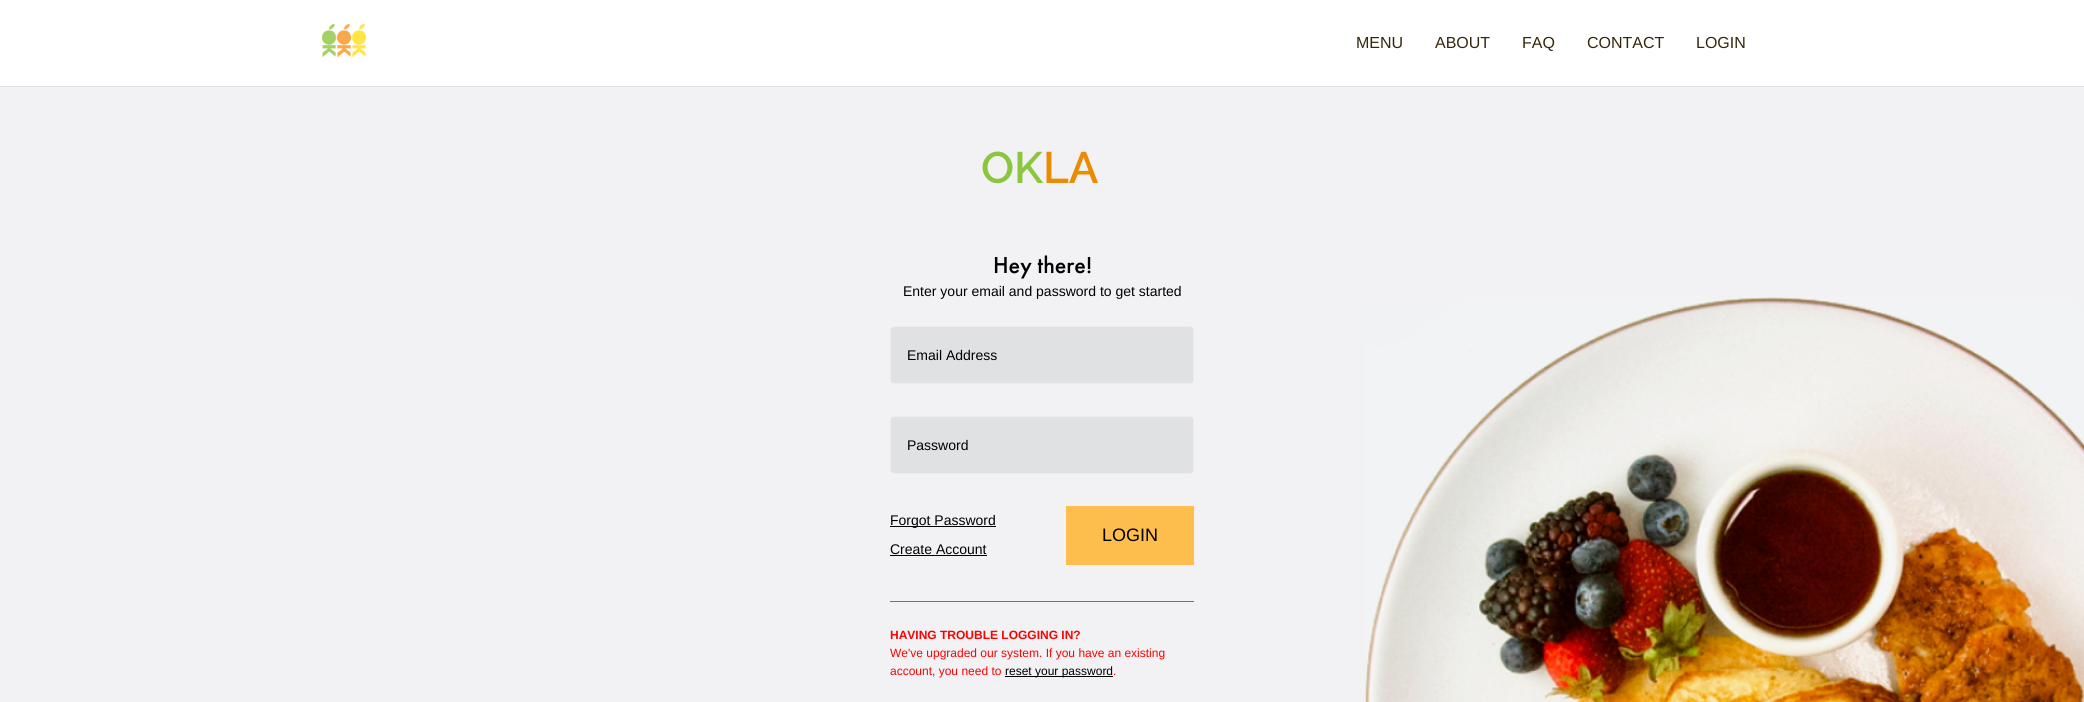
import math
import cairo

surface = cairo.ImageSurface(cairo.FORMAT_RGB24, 2084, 702)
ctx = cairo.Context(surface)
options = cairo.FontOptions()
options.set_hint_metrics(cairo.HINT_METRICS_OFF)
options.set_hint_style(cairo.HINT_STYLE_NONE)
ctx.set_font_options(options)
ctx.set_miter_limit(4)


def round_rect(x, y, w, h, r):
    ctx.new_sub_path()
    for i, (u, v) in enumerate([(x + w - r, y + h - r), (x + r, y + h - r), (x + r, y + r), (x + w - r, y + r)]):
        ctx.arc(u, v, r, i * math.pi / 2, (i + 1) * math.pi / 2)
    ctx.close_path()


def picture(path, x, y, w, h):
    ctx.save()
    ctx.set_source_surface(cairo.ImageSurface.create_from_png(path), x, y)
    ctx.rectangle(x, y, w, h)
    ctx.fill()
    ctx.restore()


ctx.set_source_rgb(1, 1, 1)
ctx.paint()
ctx.set_source_rgb(0.871, 0.886, 0.902)
ctx.rectangle(0, 86, 2084, 1)
ctx.fill()
picture("img1.png", 322, 24, 44, 33)
ctx.select_font_face("Liberation Sans")
ctx.set_font_size(16)
ctx.set_source_rgb(0.208, 0.149, 0.043)
ctx.move_to(1356, 48)
ctx.show_text("MENU")
ctx.move_to(1435, 48)
ctx.show_text("ABOUT")
ctx.move_to(1522, 48)
ctx.show_text("FAQ")
ctx.move_to(1587, 48)
ctx.show_text("CONTACT")
ctx.move_to(1696, 48)
ctx.show_text("LOGIN")
ctx.set_source_rgb(0.949, 0.949, 0.957)
ctx.rectangle(0, 87, 2084, 615)
ctx.fill()
picture("img2.png", 1365, 297, 719, 405)
ctx.select_font_face("Raleway Thin")
ctx.set_font_size(44)
ctx.set_source_rgb(0.549, 0.776, 0.247)
ctx.move_to(981, 183)
ctx.show_text("OK")
ctx.set_source_rgb(0.918, 0.545, 0)
ctx.move_to(1043, 183)
ctx.show_text("LA")
ctx.select_font_face("Futura PT Medium")
ctx.set_font_size(24)
ctx.set_source_rgb(0, 0, 0)
ctx.move_to(993, 273)
ctx.show_text("Hey there!")
ctx.select_font_face("Liberation Sans")
ctx.set_font_size(14)
ctx.move_to(903, 296)
ctx.show_text("Enter your email and password to get started")
ctx.set_source_rgb(0.878, 0.882, 0.89)
round_rect(890.5, 326.5, 303, 57, 3.5)
ctx.fill_preserve()
ctx.set_source_rgb(0.929, 0.929, 0.929)
ctx.set_line_width(1)
ctx.stroke()
ctx.set_source_rgb(0, 0, 0)
ctx.move_to(907, 360)
ctx.show_text("Email Address")
ctx.set_source_rgb(0.878, 0.882, 0.89)
round_rect(890.5, 416.5, 303, 57, 3.5)
ctx.fill_preserve()
ctx.set_source_rgb(0.929, 0.929, 0.929)
ctx.stroke()
ctx.set_source_rgb(0, 0, 0)
ctx.move_to(907, 450)
ctx.show_text("Password")
ctx.set_source_rgb(0.455, 0.455, 0.455)
ctx.rectangle(890, 601, 304, 1)
ctx.fill()
ctx.set_source_rgb(0, 0, 0)
ctx.rectangle(890, 526, 106, 1)
ctx.fill()
ctx.move_to(890, 525)
ctx.show_text("Forgot Password")
ctx.move_to(890, 554)
ctx.show_text("Create Account")
ctx.rectangle(890, 555, 97, 1)
ctx.fill()
ctx.set_source_rgb(0.992, 0.745, 0.306)
ctx.rectangle(1066, 506, 128, 59)
ctx.fill()
ctx.set_font_size(18)
ctx.set_source_rgb(0, 0, 0)
ctx.move_to(1102, 541)
ctx.show_text("LOGIN")
ctx.select_font_face("Liberation Sans", cairo.FONT_SLANT_NORMAL, cairo.FONT_WEIGHT_BOLD)
ctx.set_font_size(12)
ctx.set_source_rgb(1, 0, 0)
ctx.move_to(890, 639)
ctx.show_text("HAVING TROUBLE LOGGING IN?")
ctx.select_font_face("Liberation Sans")
ctx.move_to(890, 657)
ctx.show_text("We've upgraded our system. If you have an existing")
ctx.move_to(890, 675)
ctx.show_text("account, you need to")
ctx.set_source_rgb(0, 0, 0)
ctx.rectangle(1005, 676, 108, 1)
ctx.fill()
ctx.move_to(1005, 675)
ctx.show_text("reset your password")
ctx.set_source_rgb(1, 0, 0)
ctx.move_to(1113, 675)
ctx.show_text(".")
surface.write_to_png("page.png")
